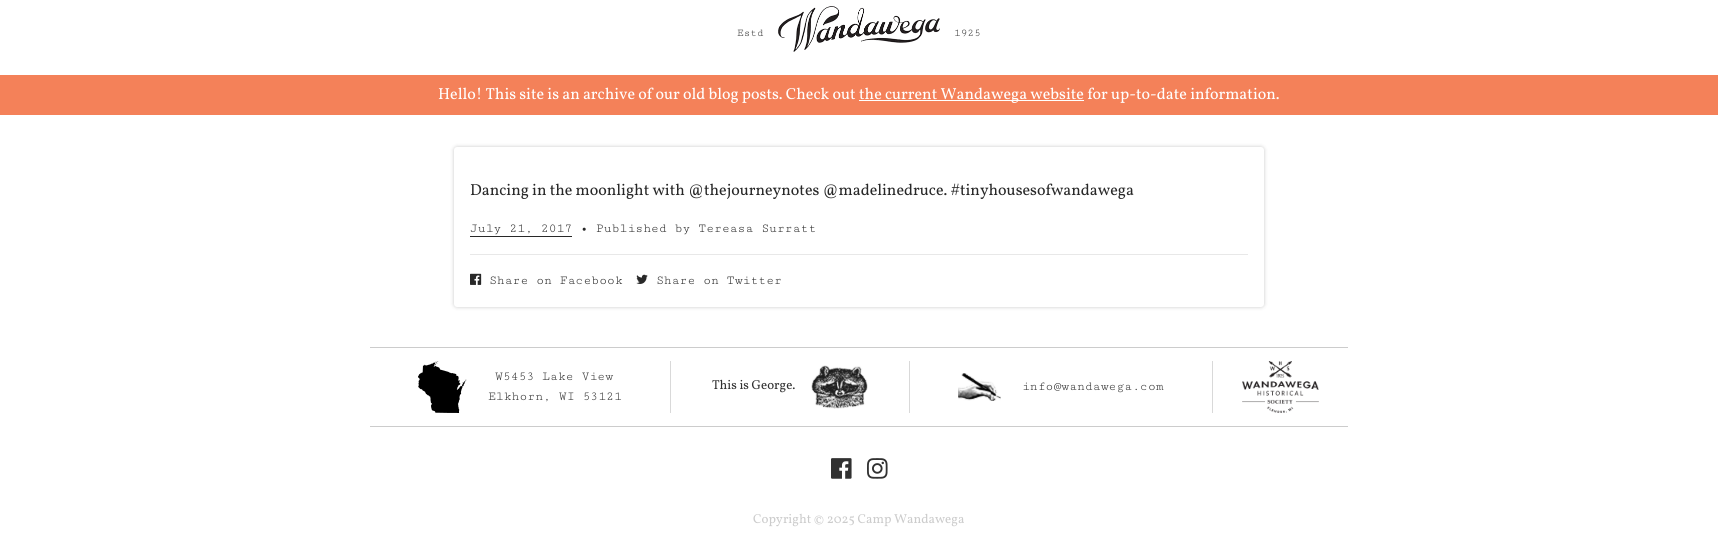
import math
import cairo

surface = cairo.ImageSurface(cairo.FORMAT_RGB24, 1718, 554)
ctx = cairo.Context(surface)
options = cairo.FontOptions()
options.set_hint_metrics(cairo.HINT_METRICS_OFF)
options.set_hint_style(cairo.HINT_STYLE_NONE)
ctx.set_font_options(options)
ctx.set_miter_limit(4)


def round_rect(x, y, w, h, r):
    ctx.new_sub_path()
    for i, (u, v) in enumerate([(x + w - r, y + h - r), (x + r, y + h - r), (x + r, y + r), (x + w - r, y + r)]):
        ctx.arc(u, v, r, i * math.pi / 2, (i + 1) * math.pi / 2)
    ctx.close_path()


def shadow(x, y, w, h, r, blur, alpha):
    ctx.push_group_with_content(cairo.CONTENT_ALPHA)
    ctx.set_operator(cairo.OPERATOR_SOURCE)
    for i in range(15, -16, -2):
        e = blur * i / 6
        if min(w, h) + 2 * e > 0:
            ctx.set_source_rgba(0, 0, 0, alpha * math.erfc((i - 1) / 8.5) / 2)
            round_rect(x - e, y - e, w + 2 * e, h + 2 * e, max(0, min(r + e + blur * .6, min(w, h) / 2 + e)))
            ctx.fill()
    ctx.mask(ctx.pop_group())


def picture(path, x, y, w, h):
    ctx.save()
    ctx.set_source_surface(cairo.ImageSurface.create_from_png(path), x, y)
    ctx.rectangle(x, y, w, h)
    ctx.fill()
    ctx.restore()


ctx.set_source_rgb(1, 1, 1)
ctx.paint()
ctx.select_font_face("Cutive Mono")
ctx.set_font_size(11)
ctx.set_source_rgb(0.192, 0.192, 0.192)
ctx.move_to(737, 36)
ctx.show_text("Estd")
picture("img1.png", 778, 6, 162, 46)
ctx.move_to(954, 36)
ctx.show_text("1925")
ctx.set_source_rgb(0.957, 0.506, 0.349)
ctx.rectangle(0, 75, 1718, 40)
ctx.fill()
ctx.select_font_face("Vollkorn")
ctx.set_font_size(16)
ctx.set_source_rgb(1, 1, 1)
ctx.move_to(438, 99)
ctx.show_text("Hello! This site is an archive of our old blog posts. Check out")
ctx.rectangle(859, 100, 225, 1)
ctx.fill()
ctx.move_to(859, 99)
ctx.show_text("the current Wandawega website for up-to-date information.")
ctx.set_source_rgb(0.157, 0.157, 0.157)
shadow(454, 147, 810, 160, 3, 2, 0.25)
ctx.set_source_rgb(1, 1, 1)
round_rect(454, 147, 810, 160, 3)
ctx.fill()
ctx.set_source_rgb(0.157, 0.157, 0.157)
ctx.move_to(470, 195)
ctx.show_text("Dancing in the moonlight with @thejourneynotes @madelinedruce. #tinyhousesofwandawega")
ctx.select_font_face("Cutive Mono")
ctx.set_font_size(13)
ctx.move_to(470, 232)
ctx.show_text("July 21, 2017 • Published by Tereasa Surratt")
ctx.rectangle(470, 236, 102, 1)
ctx.fill()
ctx.set_source_rgb(0.91, 0.91, 0.91)
ctx.rectangle(470, 254, 778, 1)
ctx.fill()
picture("img2.png", 470, 273, 12, 12)
ctx.set_source_rgb(0.157, 0.157, 0.157)
ctx.move_to(489, 284)
ctx.show_text("Share on Facebook")
picture("img3.png", 636, 274, 12, 10)
ctx.move_to(656, 284)
ctx.show_text("Share on Twitter")
ctx.set_source_rgb(0.8, 0.8, 0.8)
ctx.rectangle(370, 347, 978, 1)
ctx.fill()
ctx.rectangle(370, 426, 978, 1)
ctx.fill()
ctx.set_source_rgb(0.851, 0.851, 0.851)
ctx.rectangle(670, 361, 1, 52)
ctx.fill()
picture("img4.png", 418, 361, 49, 52)
ctx.set_source_rgb(0.192, 0.192, 0.192)
ctx.move_to(495, 380)
ctx.show_text("W5453 Lake View")
ctx.move_to(488, 400)
ctx.show_text("Elkhorn, WI 53121")
ctx.set_source_rgb(0.851, 0.851, 0.851)
ctx.rectangle(909, 361, 1, 52)
ctx.fill()
ctx.select_font_face("Vollkorn")
ctx.set_source_rgb(0.192, 0.192, 0.192)
ctx.move_to(712, 389)
ctx.show_text("This is George.")
picture("img5.png", 811, 365, 57, 44)
ctx.set_source_rgb(0.851, 0.851, 0.851)
ctx.rectangle(1212, 361, 1, 52)
ctx.fill()
picture("img6.png", 958, 373, 43, 28)
ctx.select_font_face("Cutive Mono")
ctx.set_source_rgb(0.192, 0.192, 0.192)
ctx.move_to(1022, 390)
ctx.show_text("info@wandawega.com")
picture("img7.png", 1242, 361, 77, 52)
picture("img8.png", 831, 458, 21, 21)
picture("img9.png", 867, 458, 21, 21)
ctx.select_font_face("Vollkorn")
ctx.set_source_rgb(0.8, 0.8, 0.8)
ctx.move_to(753, 523)
ctx.show_text("Copyright © 2025 Camp Wandawega")
surface.write_to_png("page.png")
